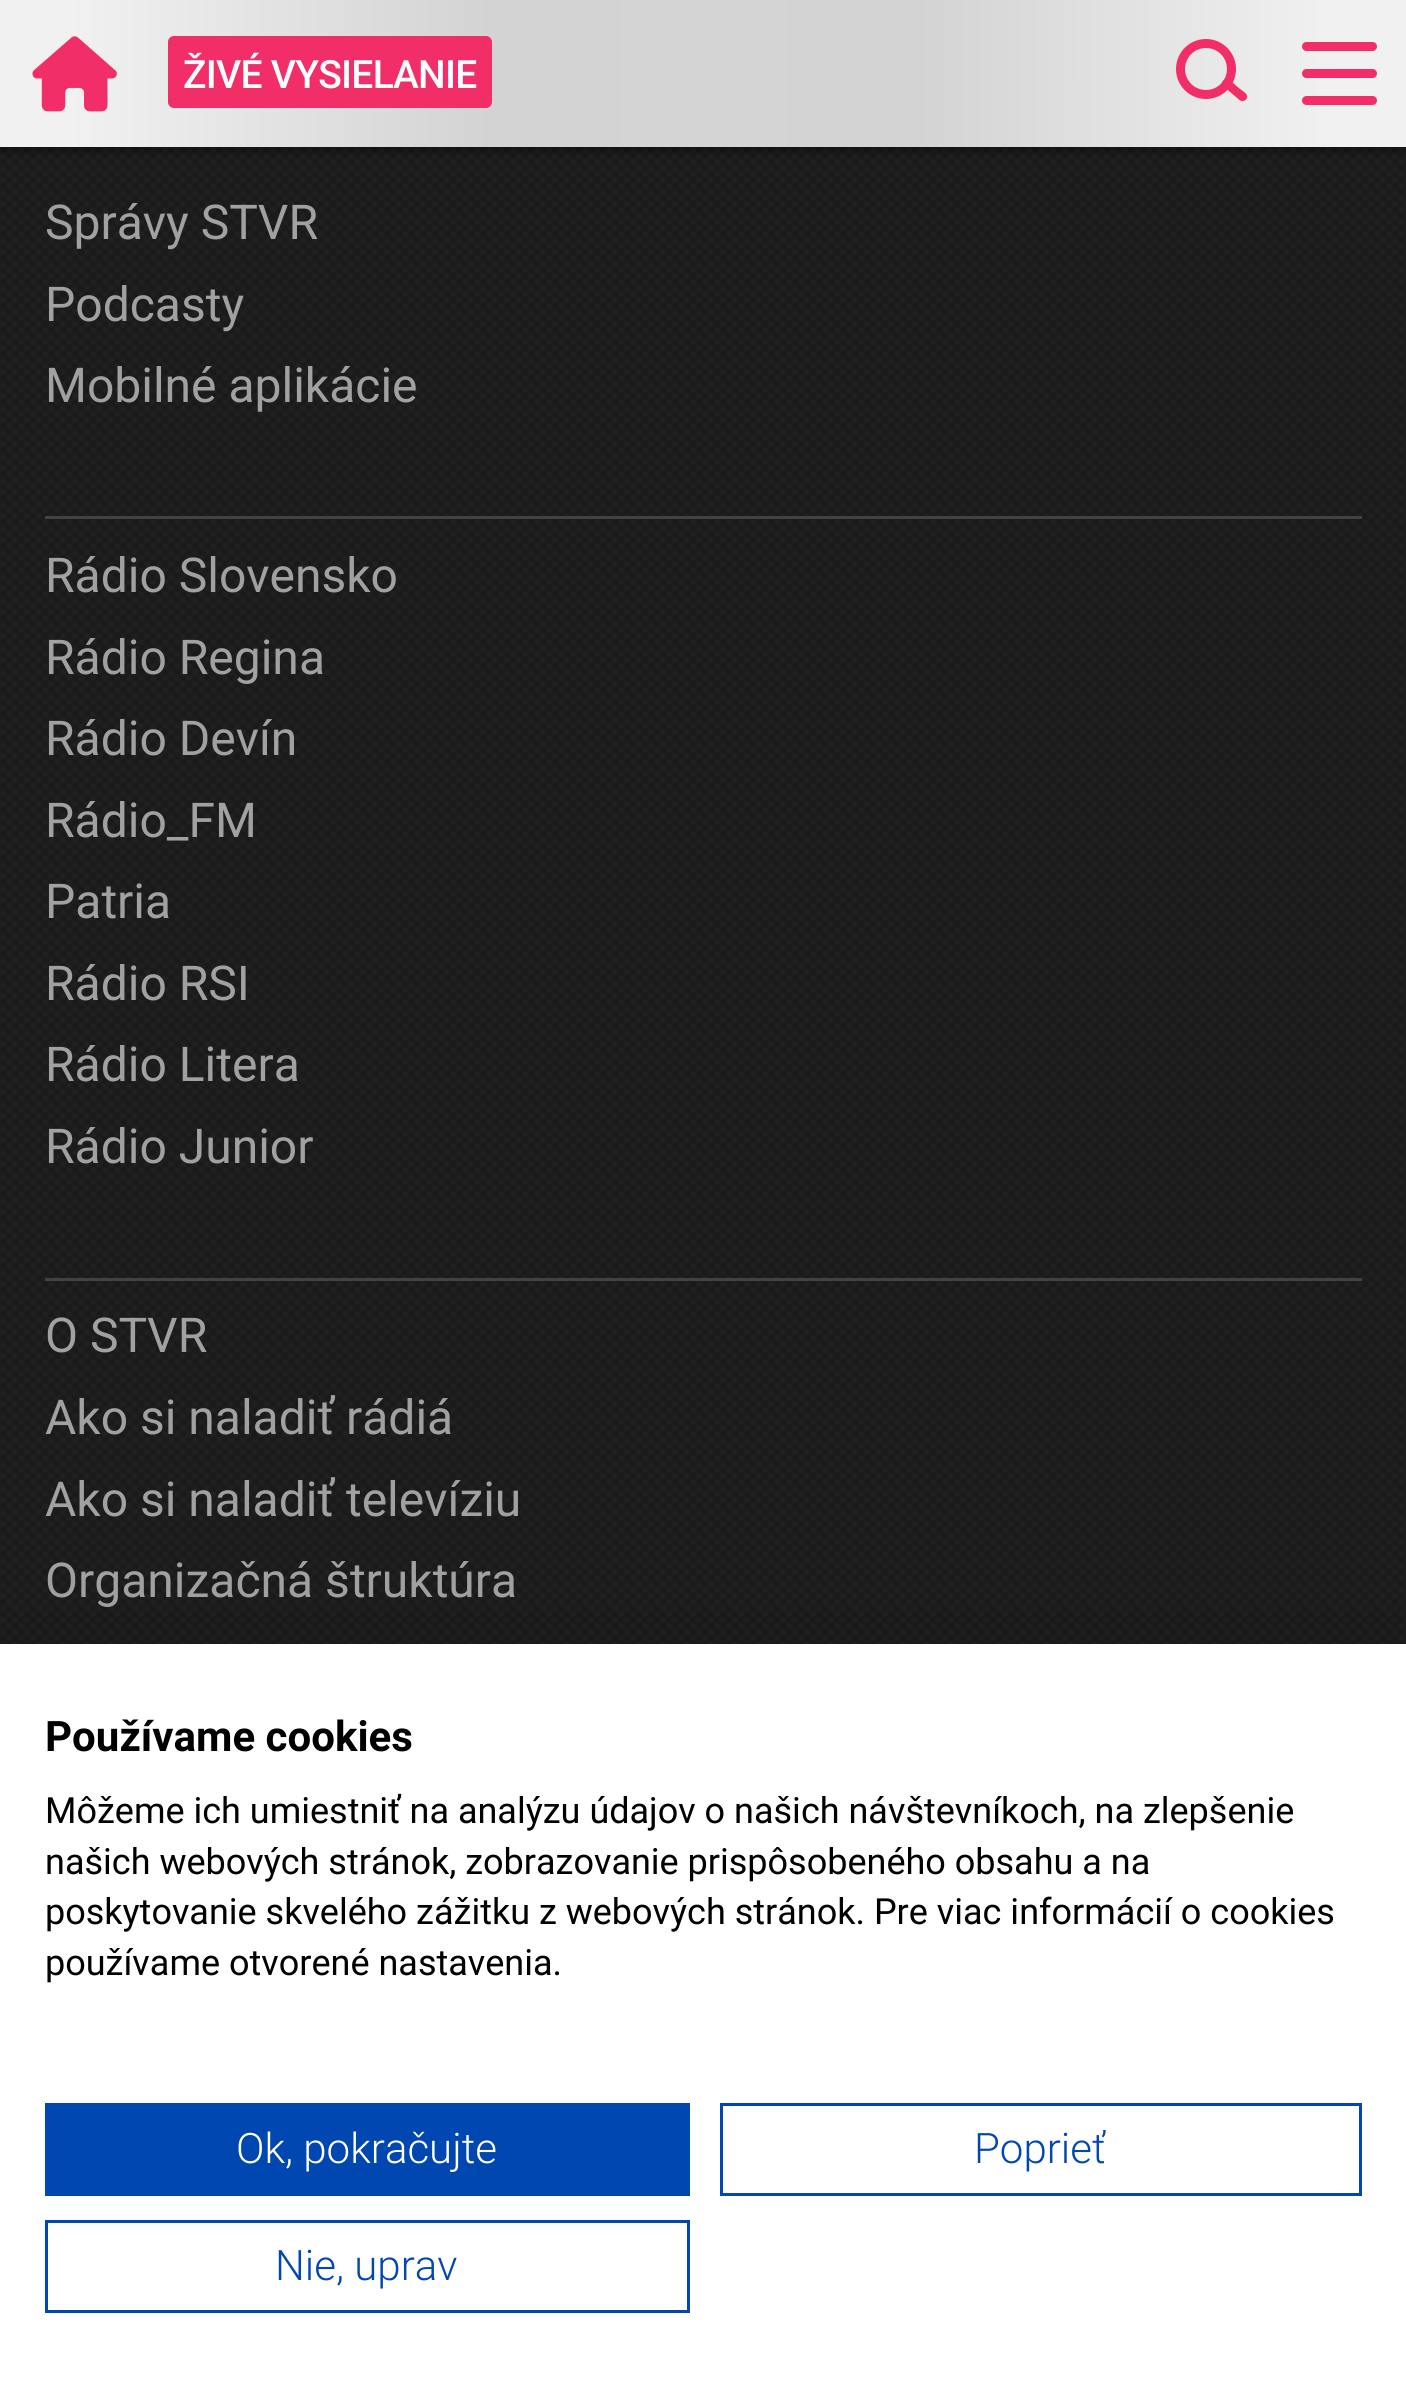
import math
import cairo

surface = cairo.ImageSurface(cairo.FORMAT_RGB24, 1406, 2392)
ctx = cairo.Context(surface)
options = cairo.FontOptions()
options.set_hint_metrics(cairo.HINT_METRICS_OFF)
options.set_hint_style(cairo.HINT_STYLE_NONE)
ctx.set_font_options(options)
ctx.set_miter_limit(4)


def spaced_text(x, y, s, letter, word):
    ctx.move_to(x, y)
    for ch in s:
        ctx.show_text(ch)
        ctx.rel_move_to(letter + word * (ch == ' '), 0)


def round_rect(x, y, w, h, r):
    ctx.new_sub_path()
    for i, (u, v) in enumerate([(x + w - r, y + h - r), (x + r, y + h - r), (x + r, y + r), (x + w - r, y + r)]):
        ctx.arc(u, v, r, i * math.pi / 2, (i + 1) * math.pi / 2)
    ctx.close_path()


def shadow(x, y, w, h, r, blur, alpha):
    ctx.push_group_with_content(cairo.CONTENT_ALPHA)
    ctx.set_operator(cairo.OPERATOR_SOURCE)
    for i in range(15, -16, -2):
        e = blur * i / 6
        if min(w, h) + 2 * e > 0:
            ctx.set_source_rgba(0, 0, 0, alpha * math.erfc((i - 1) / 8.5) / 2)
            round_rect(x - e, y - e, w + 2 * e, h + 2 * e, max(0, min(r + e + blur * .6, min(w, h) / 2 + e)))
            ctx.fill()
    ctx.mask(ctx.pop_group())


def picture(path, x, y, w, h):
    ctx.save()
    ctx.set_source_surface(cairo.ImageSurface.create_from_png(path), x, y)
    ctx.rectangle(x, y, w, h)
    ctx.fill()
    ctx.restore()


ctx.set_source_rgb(1, 1, 1)
ctx.paint()
picture("img2.png", 0, 147, 1406, 1497)
ctx.set_source_rgb(0, 0, 0)
shadow(0, 6, 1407, 147, 0, 3, 0.3)
gradient = cairo.LinearGradient(0, 74, 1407, 73)
gradient.add_color_stop_rgba(0.05, 0.945, 0.945, 0.945, 1)
gradient.add_color_stop_rgba(0.35, 0.827, 0.827, 0.827, 1)
gradient.add_color_stop_rgba(0.5, 0.831, 0.831, 0.831, 1)
gradient.add_color_stop_rgba(0.65, 0.827, 0.827, 0.827, 1)
gradient.add_color_stop_rgba(0.95, 0.945, 0.945, 0.945, 1)
ctx.set_source(gradient)
ctx.rectangle(0, 0, 1406, 147)
ctx.fill()
picture("img1.png", 32, 36, 85, 76)
ctx.set_source_rgb(0.945, 0.18, 0.408)
round_rect(168, 36, 324, 72, 6)
ctx.fill()
ctx.select_font_face("Roboto Medium")
ctx.set_font_size(39)
ctx.set_source_rgb(1, 1, 1)
spaced_text(183, 88, "ŽIVÉ VYSIELANIE", -0.75, 0)
ctx.new_path()
ctx.arc(1206, 69, 25.5, 0, 2 * math.pi)
ctx.set_source_rgb(0.945, 0.18, 0.408)
ctx.set_line_width(9)
ctx.stroke()
ctx.new_path()
ctx.move_to(1229.5, 80)
ctx.line_to(1240, 89)
ctx.curve_to(1242, 90.5, 1245.5, 92.5, 1246.5, 94.5)
ctx.curve_to(1249, 99, 1243.5, 103, 1239.5, 100)
ctx.line_to(1223, 86)
ctx.curve_to(1219.5, 82, 1225.5, 76.5, 1229.5, 80)
ctx.close_path()
ctx.fill()
round_rect(1302, 42, 75, 9, 4.5)
ctx.fill()
round_rect(1302, 69, 75, 9, 4.5)
ctx.fill()
round_rect(1302, 96, 75, 9, 4.5)
ctx.fill()
ctx.select_font_face("Roboto")
ctx.set_font_size(48)
ctx.set_source_rgb(0.631, 0.631, 0.631)
ctx.move_to(45, 239)
ctx.show_text("Správy STVR")
ctx.move_to(45, 321)
ctx.show_text("Podcasty")
ctx.move_to(45, 402)
ctx.show_text("Mobilné aplikácie")
ctx.set_source_rgb(0.259, 0.259, 0.259)
ctx.rectangle(45, 516, 1317, 3)
ctx.fill()
ctx.set_source_rgb(0.631, 0.631, 0.631)
ctx.move_to(45, 592)
ctx.show_text("Rádio Slovensko")
ctx.move_to(45, 674)
ctx.show_text("Rádio Regina")
ctx.move_to(45, 755)
ctx.show_text("Rádio Devín")
ctx.move_to(45, 837)
ctx.show_text("Rádio_FM")
ctx.move_to(45, 918)
ctx.show_text("Patria")
ctx.move_to(45, 1000)
ctx.show_text("Rádio RSI")
ctx.move_to(45, 1081)
ctx.show_text("Rádio Litera")
ctx.move_to(45, 1163)
ctx.show_text("Rádio Junior")
ctx.set_source_rgb(0.259, 0.259, 0.259)
ctx.rectangle(45, 1278, 1317, 3)
ctx.fill()
ctx.set_source_rgb(0.631, 0.631, 0.631)
ctx.move_to(45, 1352)
ctx.show_text("O STVR")
ctx.move_to(45, 1434)
ctx.show_text("Ako si naladiť rádiá")
ctx.move_to(45, 1516)
ctx.show_text("Ako si naladiť televíziu")
ctx.move_to(45, 1597)
ctx.show_text("Organizačná štruktúra")
ctx.set_source_rgb(0, 0, 0)
shadow(0, 1644, 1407, 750, 0, 36, 0.1)
ctx.set_source_rgb(1, 1, 1)
ctx.rectangle(0, 1644, 1406, 748)
ctx.fill()
ctx.select_font_face("Roboto", cairo.FONT_SLANT_NORMAL, cairo.FONT_WEIGHT_BOLD)
ctx.set_font_size(42)
ctx.set_source_rgb(0, 0, 0)
ctx.move_to(45, 1751)
ctx.show_text("Používame cookies")
ctx.select_font_face("Roboto")
ctx.set_font_size(36)
ctx.move_to(45, 1823)
ctx.show_text("Môžeme ich umiestniť na analýzu údajov o našich návštevníkoch, na zlepšenie")
ctx.move_to(45, 1874)
ctx.show_text("našich webových stránok, zobrazovanie prispôsobeného obsahu a na")
ctx.move_to(45, 1924)
ctx.show_text("poskytovanie skvelého zážitku z webových stránok. Pre viac informácií o cookies")
ctx.move_to(45, 1975)
ctx.show_text("používame otvorené nastavenia.")
ctx.set_source_rgb(0, 0.278, 0.698)
ctx.rectangle(45, 2103, 645, 93)
ctx.fill()
ctx.select_font_face("Roboto Light")
ctx.set_font_size(42)
ctx.set_source_rgb(1, 1, 1)
ctx.move_to(236, 2163)
ctx.show_text("Ok, pokračujte")
ctx.rectangle(721.5, 2104.5, 639, 90)
ctx.set_source_rgb(0, 0.278, 0.698)
ctx.set_line_width(3)
ctx.stroke()
ctx.move_to(974, 2163)
ctx.show_text("Poprieť")
ctx.rectangle(46.5, 2221.5, 642, 90)
ctx.stroke()
ctx.move_to(275, 2280)
ctx.show_text("Nie, uprav")
surface.write_to_png("page.png")
